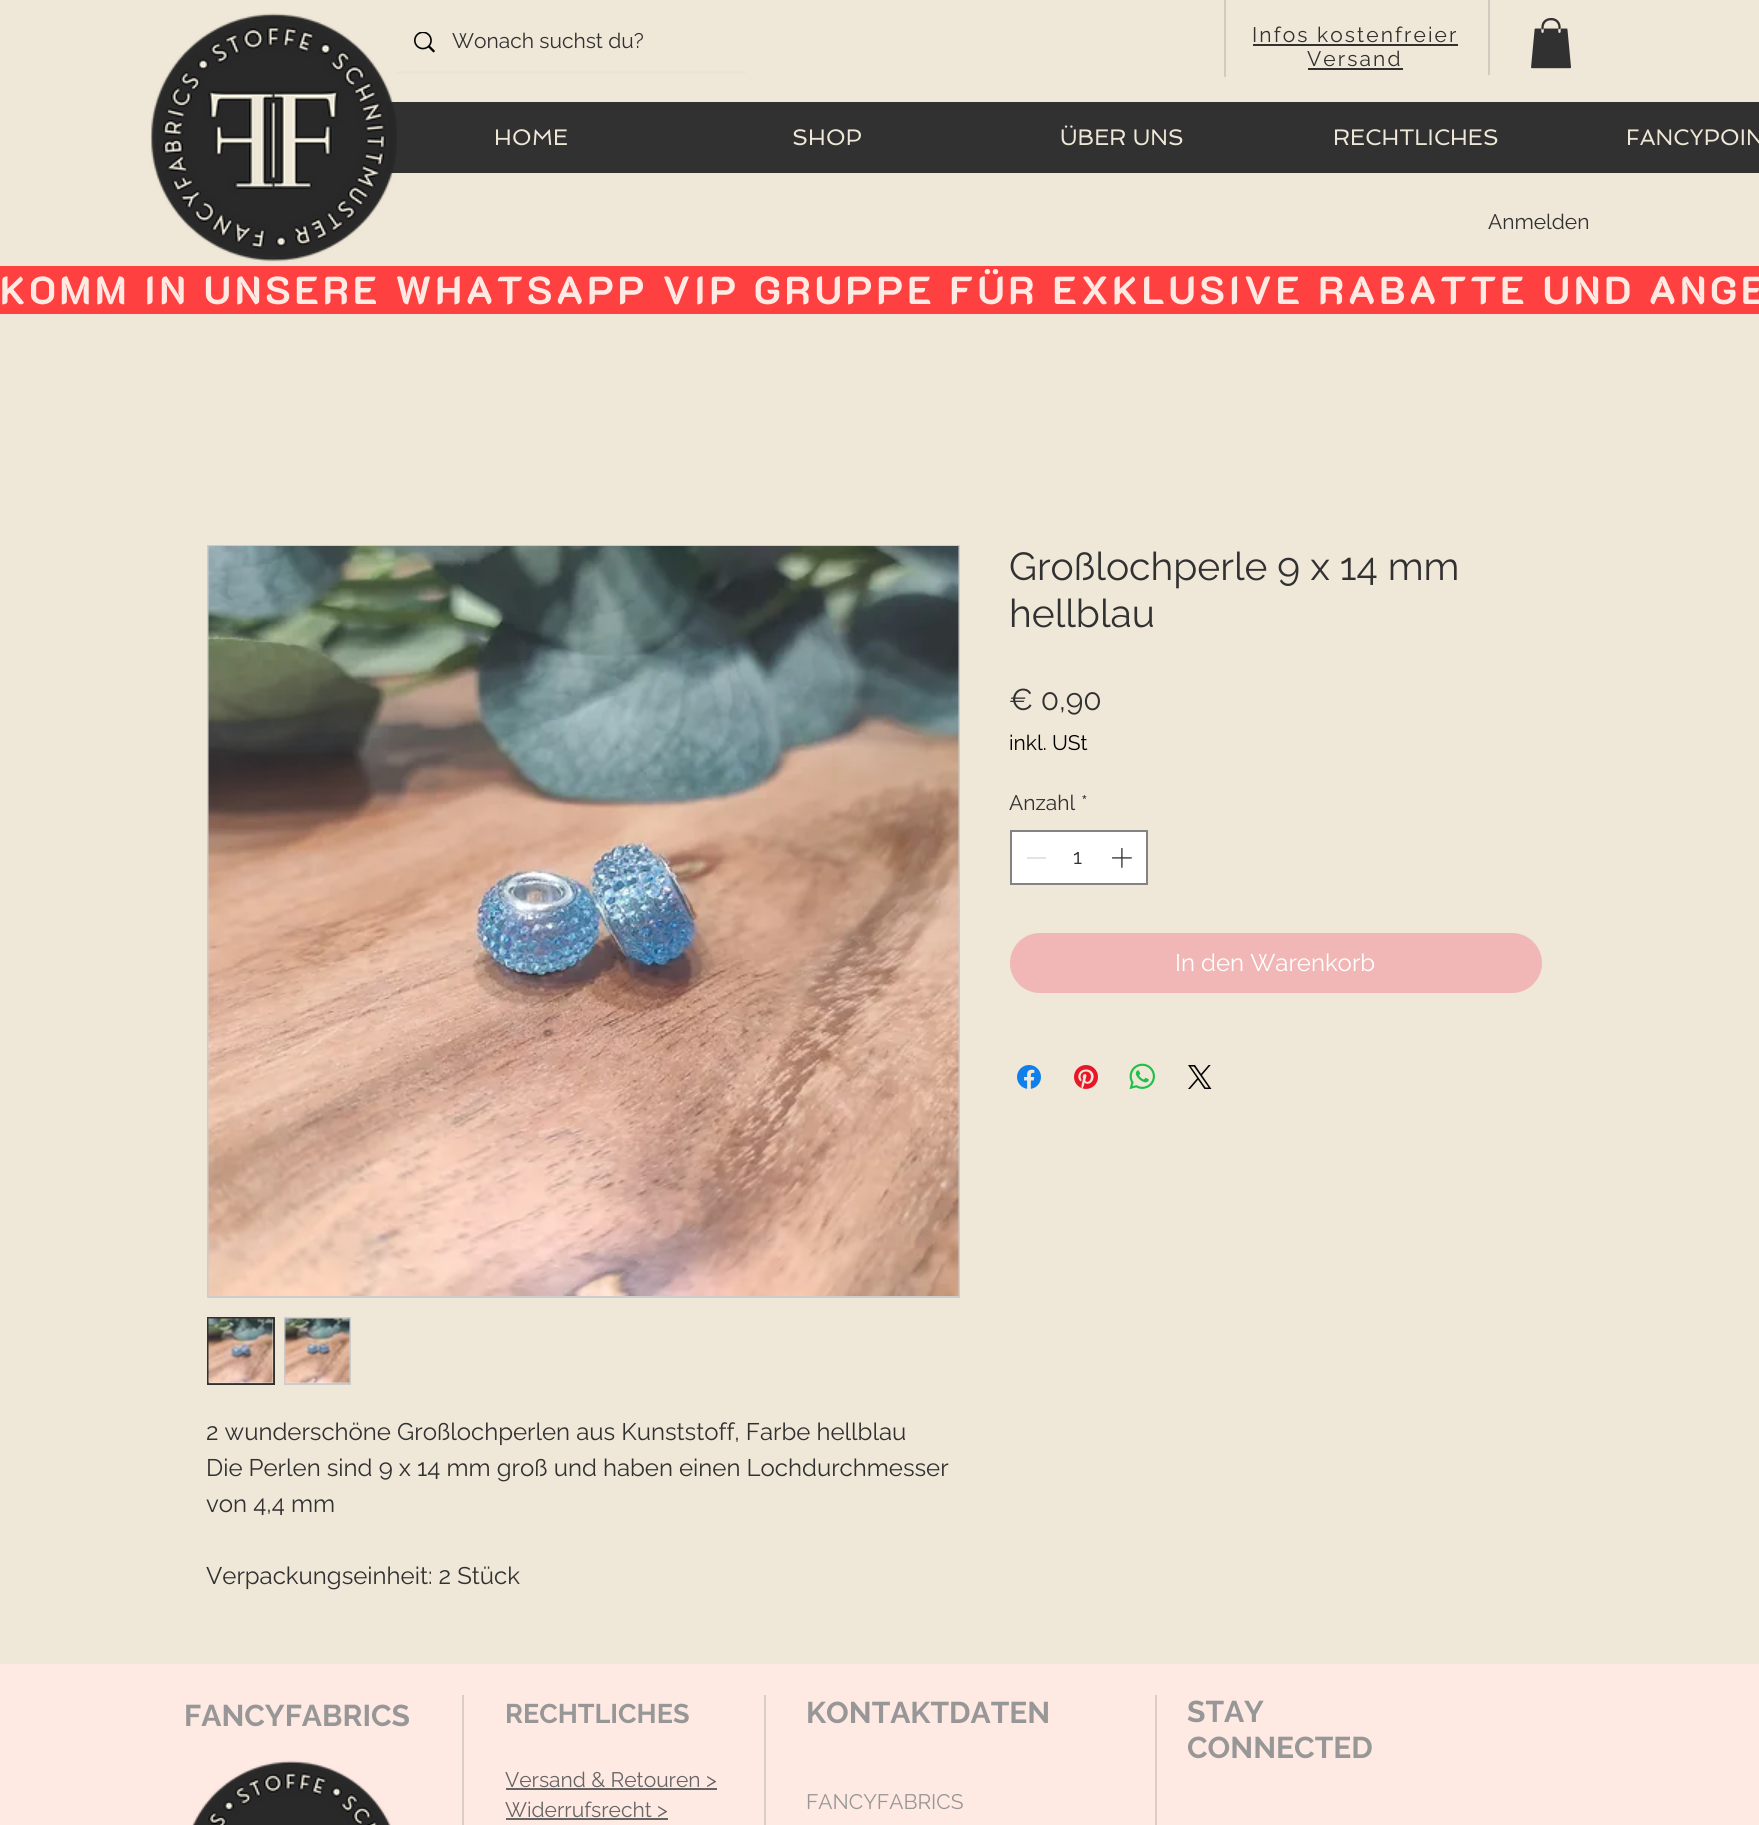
import math
import cairo

surface = cairo.ImageSurface(cairo.FORMAT_RGB24, 1759, 1825)
ctx = cairo.Context(surface)
options = cairo.FontOptions()
options.set_hint_metrics(cairo.HINT_METRICS_OFF)
options.set_hint_style(cairo.HINT_STYLE_NONE)
ctx.set_font_options(options)
ctx.set_miter_limit(4)


def spaced_text(x, y, s, letter, word):
    ctx.move_to(x, y)
    for ch in s:
        ctx.show_text(ch)
        ctx.rel_move_to(letter + word * (ch == ' '), 0)


def round_rect(x, y, w, h, r):
    ctx.new_sub_path()
    for i, (u, v) in enumerate([(x + w - r, y + h - r), (x + r, y + h - r), (x + r, y + r), (x + w - r, y + r)]):
        ctx.arc(u, v, r, i * math.pi / 2, (i + 1) * math.pi / 2)
    ctx.close_path()


def picture(path, x, y, w, h):
    ctx.save()
    ctx.set_source_surface(cairo.ImageSurface.create_from_png(path), x, y)
    ctx.rectangle(x, y, w, h)
    ctx.fill()
    ctx.restore()


ctx.set_source_rgb(0.937, 0.906, 0.843)
ctx.paint()
ctx.set_source_rgb(0.922, 0.898, 0.839)
ctx.rectangle(396, 71, 350, 3)
ctx.fill()
ctx.set_source_rgb(0.192, 0.192, 0.192)
ctx.rectangle(387, 102, 1372, 71)
ctx.fill()
picture("img1.png", 150, 13, 247, 249)
ctx.set_source_rgb(0.816, 0.796, 0.757)
ctx.rectangle(1224, 0, 2, 77)
ctx.fill()
picture("img2.png", 1531, 18, 40, 51)
picture("img3.png", 414, 32, 21, 21)
ctx.select_font_face("Raleway")
ctx.set_font_size(21)
ctx.set_source_rgb(0.192, 0.192, 0.192)
ctx.move_to(452, 48)
ctx.show_text("Wonach suchst du?")
spaced_text(1252, 42, "Infos kostenfreier", 2.1, 0)
ctx.rectangle(1253, 44, 205, 2)
ctx.fill()
spaced_text(1307, 66, "Versand", 2.1, 0)
ctx.rectangle(1308, 68, 95, 2)
ctx.fill()
ctx.set_source_rgb(0.816, 0.796, 0.757)
ctx.rectangle(1488, 0, 2, 75)
ctx.fill()
ctx.select_font_face("Spinnaker")
ctx.set_font_size(22.5)
ctx.set_source_rgb(0.937, 0.906, 0.843)
ctx.move_to(494, 145)
ctx.show_text("HOME")
ctx.move_to(792, 145)
ctx.show_text("SHOP")
ctx.move_to(1060, 145)
ctx.show_text("ÜBER UNS")
ctx.move_to(1333, 145)
ctx.show_text("RECHTLICHES")
ctx.move_to(1626, 145)
ctx.show_text("FANCYPOIN")
ctx.select_font_face("Raleway")
ctx.set_font_size(21)
ctx.set_source_rgb(0.192, 0.192, 0.192)
ctx.move_to(1488, 229)
ctx.show_text("Anmelden")
ctx.set_source_rgb(1, 0.251, 0.251)
ctx.rectangle(0, 266, 1759, 48)
ctx.fill()
ctx.select_font_face("K2D", cairo.FONT_SLANT_NORMAL, cairo.FONT_WEIGHT_BOLD)
ctx.set_font_size(39)
ctx.set_source_rgb(1, 0.914, 0.89)
spaced_text(0, 304, "KOMM IN UNSERE WHATSAPP VIP GRUPPE FÜR EXKLUSIVE RABATTE UND ANGE", 3.9, 0)
ctx.select_font_face("Raleway")
ctx.set_source_rgb(0.192, 0.192, 0.192)
ctx.move_to(1009, 580)
ctx.show_text("Großlochperle 9 x 14 mm")
ctx.move_to(1009, 627)
ctx.show_text("hellblau")
ctx.set_font_size(30)
ctx.move_to(1009, 710)
ctx.show_text("€ 0,90")
ctx.set_font_size(21)
ctx.set_source_rgb(0, 0, 0)
ctx.move_to(1009, 750)
ctx.show_text("inkl. USt")
ctx.set_source_rgb(0.192, 0.192, 0.192)
ctx.move_to(1009, 810)
ctx.show_text("Anzahl")
ctx.move_to(1081, 810)
ctx.show_text("*")
ctx.set_source_rgb(1, 1, 1)
ctx.rectangle(1011, 831, 136, 53)
ctx.fill_preserve()
ctx.set_source_rgb(0.514, 0.514, 0.514)
ctx.stroke()
ctx.set_source_rgb(0.89, 0.89, 0.89)
ctx.rectangle(1027, 857, 19, 2)
ctx.fill()
ctx.set_source_rgb(0.192, 0.192, 0.192)
ctx.move_to(1073, 864)
ctx.show_text("1")
picture("img4.png", 1112, 848, 20, 20)
ctx.set_source_rgb(0.941, 0.718, 0.714)
round_rect(1010, 933, 532, 60, 30)
ctx.fill()
ctx.set_font_size(24)
ctx.set_source_rgb(1, 1, 1)
ctx.move_to(1175, 971)
ctx.show_text("In den Warenkorb")
picture("img5.png", 1017, 1065, 24, 24)
picture("img6.png", 1074, 1065, 24, 24)
picture("img7.png", 1129, 1063, 26, 27)
picture("img8.png", 1188, 1065, 24, 24)
ctx.rectangle(208, 546, 751, 751)
ctx.set_source_rgb(0.8, 0.8, 0.8)
ctx.stroke()
picture("img9.png", 208, 546, 751, 750)
ctx.rectangle(208, 1318, 66, 66)
ctx.set_source_rgb(0.192, 0.192, 0.192)
ctx.stroke()
picture("img10.png", 208, 1318, 66, 66)
ctx.rectangle(285, 1318, 65, 66)
ctx.set_source_rgb(0.8, 0.8, 0.8)
ctx.stroke()
picture("img11.png", 284, 1318, 66, 66)
ctx.set_source_rgb(0.192, 0.192, 0.192)
ctx.move_to(206, 1440)
ctx.show_text("2 wunderschöne Großlochperlen aus Kunststoff, Farbe hellblau")
ctx.move_to(206, 1476)
ctx.show_text("Die Perlen sind 9 x 14 mm groß und haben einen Lochdurchmesser")
ctx.move_to(206, 1512)
ctx.show_text("von 4,4 mm")
ctx.move_to(206, 1584)
ctx.show_text("Verpackungseinheit: 2 Stück")
ctx.set_source_rgb(1, 0.914, 0.89)
ctx.rectangle(0, 1664, 1759, 161)
ctx.fill()
ctx.select_font_face("Raleway", cairo.FONT_SLANT_NORMAL, cairo.FONT_WEIGHT_BOLD)
ctx.set_font_size(30)
ctx.set_source_rgb(0.592, 0.592, 0.592)
ctx.move_to(184, 1726)
ctx.show_text("FANCYFABRICS")
ctx.set_source_rgb(0.859, 0.8, 0.784)
ctx.rectangle(462, 1695, 2, 130)
ctx.fill()
ctx.set_font_size(27)
ctx.set_source_rgb(0.592, 0.592, 0.592)
ctx.move_to(505, 1723)
ctx.show_text("RECHTLICHES")
ctx.select_font_face("Raleway")
ctx.set_font_size(21)
ctx.set_source_rgb(0.396, 0.396, 0.396)
ctx.move_to(505, 1787)
ctx.show_text("Versand & Retouren >")
ctx.rectangle(506, 1788, 211, 2)
ctx.fill()
ctx.move_to(505, 1817)
ctx.show_text("Widerrufsrecht >")
ctx.rectangle(506, 1818, 162, 2)
ctx.fill()
ctx.set_source_rgb(0.859, 0.8, 0.784)
ctx.rectangle(764, 1695, 2, 130)
ctx.fill()
ctx.select_font_face("Raleway", cairo.FONT_SLANT_NORMAL, cairo.FONT_WEIGHT_BOLD)
ctx.set_font_size(30)
ctx.set_source_rgb(0.592, 0.592, 0.592)
ctx.move_to(806, 1723)
ctx.show_text("KONTAKTDATEN")
ctx.select_font_face("Raleway")
ctx.set_font_size(21)
ctx.move_to(806, 1809)
ctx.show_text("FANCYFABRICS")
ctx.set_source_rgb(0.859, 0.8, 0.784)
ctx.rectangle(1155, 1695, 2, 130)
ctx.fill()
ctx.select_font_face("Raleway", cairo.FONT_SLANT_NORMAL, cairo.FONT_WEIGHT_BOLD)
ctx.set_font_size(30)
ctx.set_source_rgb(0.592, 0.592, 0.592)
ctx.move_to(1187, 1722)
ctx.show_text("STAY")
ctx.move_to(1187, 1758)
ctx.show_text("CONNECTED")
picture("img12.png", 192, 1760, 199, 65)
surface.write_to_png("page.png")
